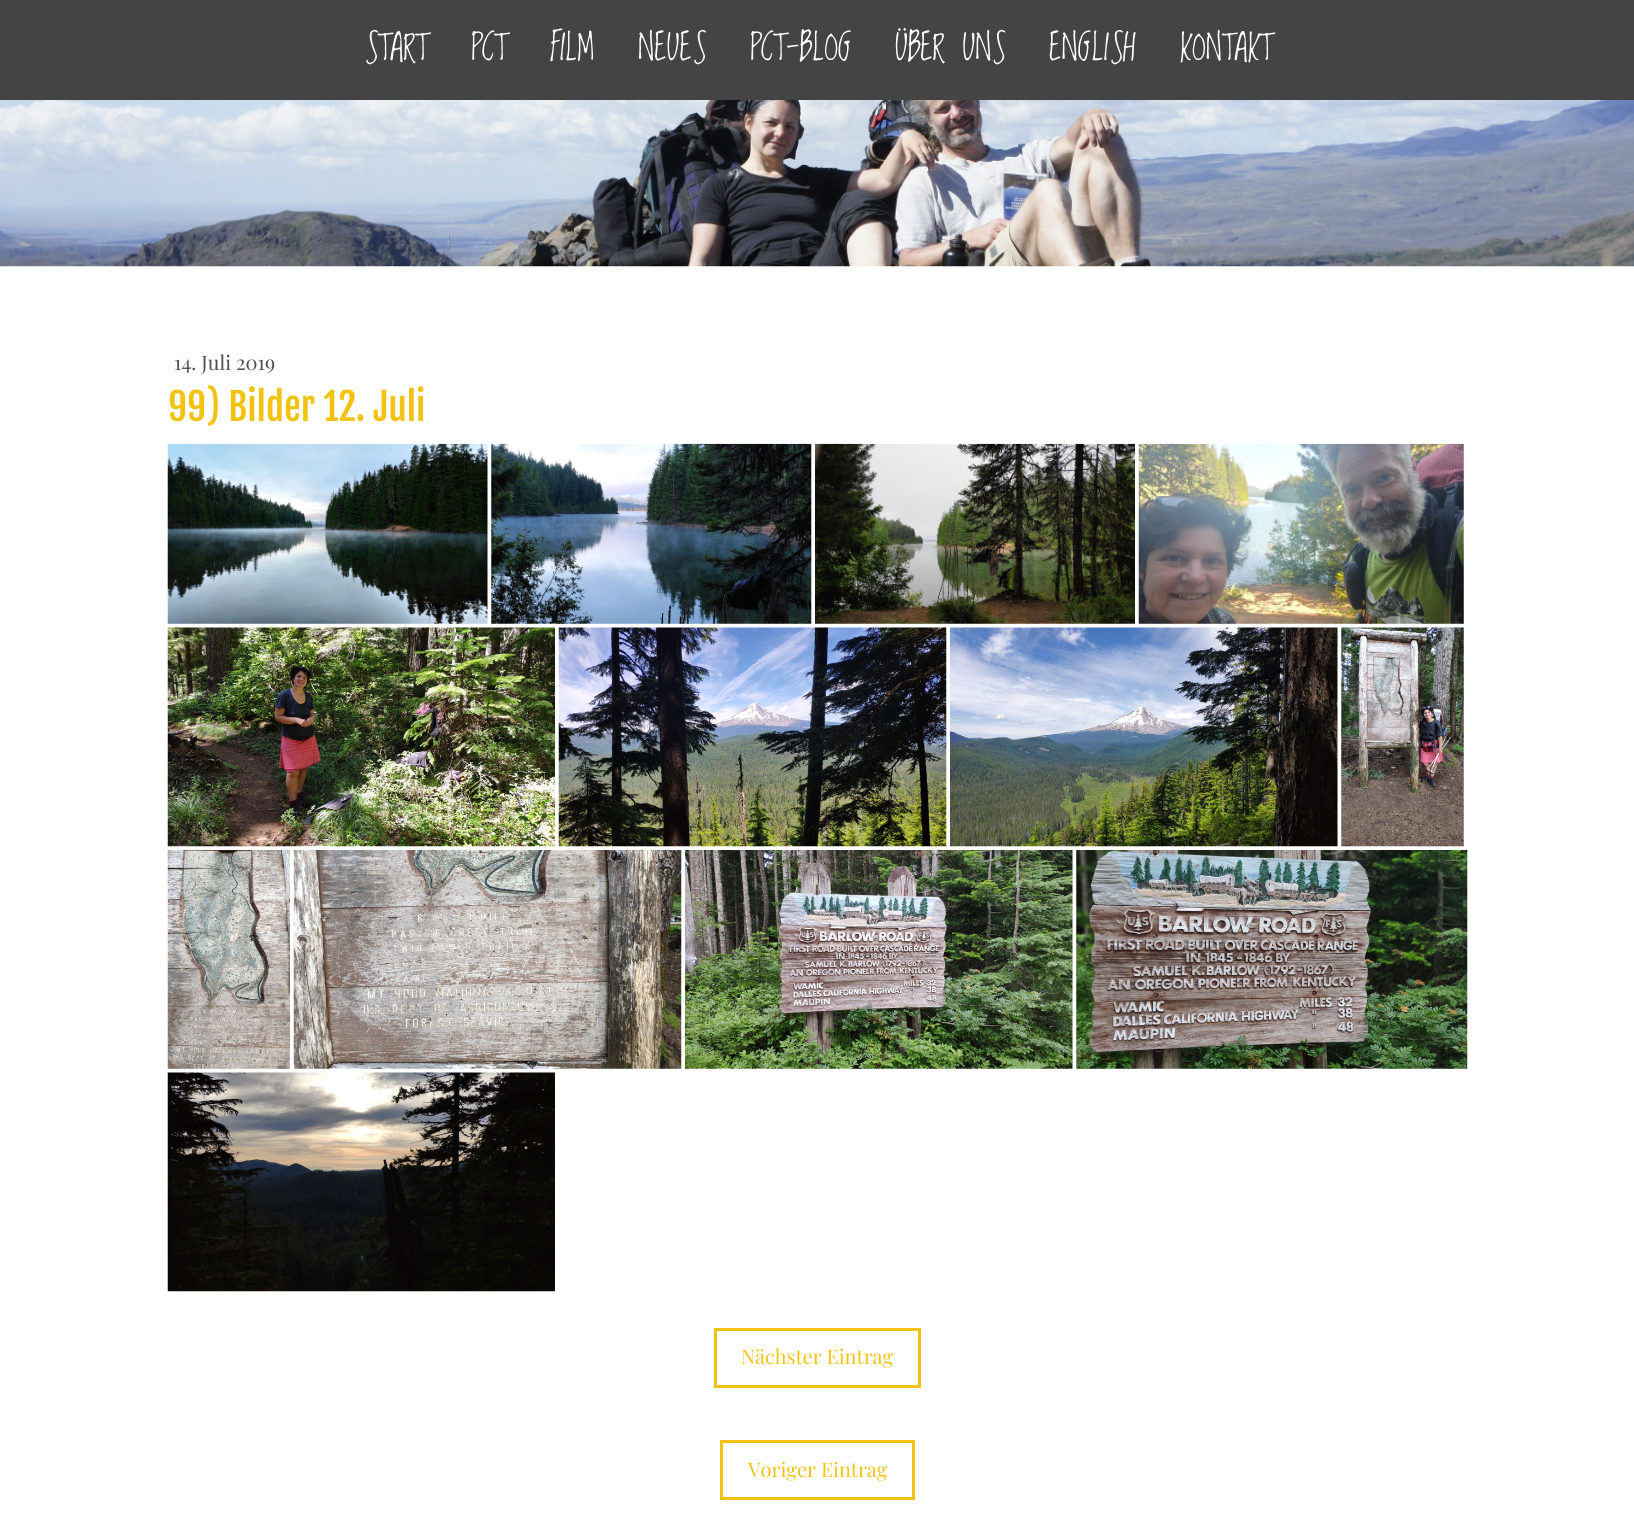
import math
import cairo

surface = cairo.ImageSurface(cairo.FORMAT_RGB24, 1634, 1526)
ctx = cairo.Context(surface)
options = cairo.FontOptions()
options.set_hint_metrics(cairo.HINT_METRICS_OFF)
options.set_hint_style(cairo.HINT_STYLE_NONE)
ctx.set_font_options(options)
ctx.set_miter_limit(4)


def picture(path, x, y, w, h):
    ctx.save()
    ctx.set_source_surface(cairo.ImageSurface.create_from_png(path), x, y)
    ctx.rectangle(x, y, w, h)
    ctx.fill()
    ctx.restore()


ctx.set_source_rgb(1, 1, 1)
ctx.paint()
ctx.set_source_rgb(0.267, 0.267, 0.267)
ctx.rectangle(0, 0, 1634, 100)
ctx.fill()
ctx.select_font_face("Loved by the King")
ctx.set_font_size(35)
ctx.set_source_rgb(1, 1, 1)
ctx.move_to(364, 60)
ctx.show_text("START")
ctx.move_to(471, 60)
ctx.show_text("PCT")
ctx.move_to(550, 60)
ctx.show_text("FILM")
ctx.move_to(638, 60)
ctx.show_text("NEUES")
ctx.move_to(750, 60)
ctx.show_text("PCT-BLOG")
ctx.move_to(895, 60)
ctx.show_text("ÜBER UNS")
ctx.move_to(1049, 60)
ctx.show_text("ENGLISH")
ctx.move_to(1180, 60)
ctx.show_text("KONTAKT")
picture("img1.png", 0, 100, 1634, 167)
ctx.select_font_face("Playfair Display")
ctx.set_font_size(20)
ctx.set_source_rgb(0.306, 0.314, 0.337)
ctx.move_to(174, 370)
ctx.show_text("14. Juli 2019")
ctx.select_font_face("Fjalla One")
ctx.set_font_size(37.5)
ctx.set_source_rgb(0.949, 0.765, 0.078)
ctx.move_to(168, 421)
ctx.show_text("99) Bilder 12. Juli")
picture("img2.png", 167, 443, 321, 181)
picture("img3.png", 491, 443, 321, 181)
picture("img4.png", 815, 443, 320, 181)
picture("img5.png", 1138, 443, 326, 181)
picture("img6.png", 167, 627, 388, 220)
picture("img7.png", 558, 627, 389, 220)
picture("img8.png", 950, 627, 388, 220)
picture("img9.png", 1341, 627, 123, 220)
picture("img10.png", 167, 850, 123, 219)
picture("img11.png", 293, 850, 389, 219)
picture("img12.png", 685, 850, 388, 219)
picture("img13.png", 1076, 850, 392, 219)
picture("img14.png", 167, 1072, 388, 220)
ctx.rectangle(715.5, 1329.5, 204, 57)
ctx.set_line_width(3)
ctx.stroke()
ctx.select_font_face("Playfair Display")
ctx.set_font_size(20)
ctx.move_to(741, 1364)
ctx.show_text("Nächster Eintrag")
ctx.rectangle(721.5, 1441.5, 192, 57)
ctx.stroke()
ctx.move_to(748, 1477)
ctx.show_text("Voriger Eintrag")
surface.write_to_png("page.png")
